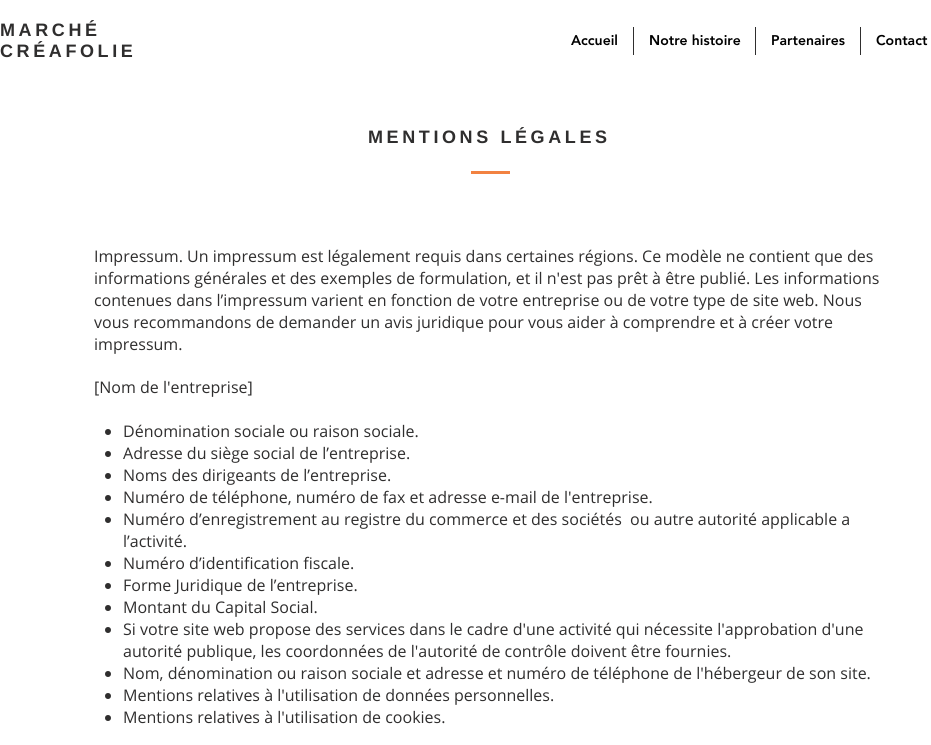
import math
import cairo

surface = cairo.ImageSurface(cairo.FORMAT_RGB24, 931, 745)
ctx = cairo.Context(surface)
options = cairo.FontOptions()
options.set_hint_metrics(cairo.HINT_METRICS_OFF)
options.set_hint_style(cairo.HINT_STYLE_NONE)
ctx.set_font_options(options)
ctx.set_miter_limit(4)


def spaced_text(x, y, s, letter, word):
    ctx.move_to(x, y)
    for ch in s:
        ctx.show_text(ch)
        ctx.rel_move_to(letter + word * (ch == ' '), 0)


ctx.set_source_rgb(1, 1, 1)
ctx.paint()
ctx.select_font_face("Liberation Sans", cairo.FONT_SLANT_NORMAL, cairo.FONT_WEIGHT_BOLD)
ctx.set_font_size(18)
ctx.set_source_rgb(0.184, 0.18, 0.18)
spaced_text(0, 36, "MARCHÉ", 3.6, 0)
spaced_text(0, 57, "CRÉAFOLIE", 3.6, 0)
ctx.select_font_face("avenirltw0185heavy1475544 Black")
ctx.set_font_size(14)
ctx.set_source_rgb(0, 0, 0)
ctx.move_to(571, 45)
ctx.show_text("Accueil")
ctx.set_source_rgb(0.184, 0.18, 0.18)
ctx.rectangle(633, 27, 1, 28)
ctx.fill()
ctx.set_source_rgb(0, 0, 0)
ctx.move_to(649, 45)
ctx.show_text("Notre histoire")
ctx.set_source_rgb(0.184, 0.18, 0.18)
ctx.rectangle(755, 27, 1, 28)
ctx.fill()
ctx.set_source_rgb(0, 0, 0)
ctx.move_to(771, 45)
ctx.show_text("Partenaires")
ctx.set_source_rgb(0.184, 0.18, 0.18)
ctx.rectangle(860, 27, 1, 28)
ctx.fill()
ctx.set_source_rgb(0, 0, 0)
ctx.move_to(876, 45)
ctx.show_text("Contact")
ctx.select_font_face("Liberation Sans", cairo.FONT_SLANT_NORMAL, cairo.FONT_WEIGHT_BOLD)
ctx.set_font_size(18)
ctx.set_source_rgb(0.184, 0.18, 0.18)
spaced_text(368, 143, "MENTIONS LÉGALES", 3.6, 0)
ctx.set_source_rgb(0.949, 0.51, 0.255)
ctx.rectangle(471, 171, 39, 3)
ctx.fill()
ctx.select_font_face("Open Sans")
ctx.set_font_size(16)
ctx.set_source_rgb(0.184, 0.18, 0.18)
ctx.move_to(94, 262)
ctx.show_text("Impressum. Un impressum est légalement requis dans certaines régions. Ce modèle ne contient que des")
ctx.move_to(94, 284)
ctx.show_text("informations générales et des exemples de formulation, et il n'est pas prêt à être publié. Les informations")
ctx.move_to(94, 306)
ctx.show_text("contenues dans l’impressum varient en fonction de votre entreprise ou de votre type de site web. Nous")
ctx.move_to(94, 328)
ctx.show_text("vous recommandons de demander un avis juridique pour vous aider à comprendre et à créer votre")
ctx.move_to(94, 350)
ctx.show_text("impressum.")
ctx.move_to(94, 393)
ctx.show_text("[Nom de l'entreprise]")
ctx.new_path()
ctx.arc(108, 432, 3, 0, 2 * math.pi)
ctx.fill()
ctx.move_to(123, 437)
ctx.show_text("Dénomination sociale ou raison sociale.")
ctx.new_path()
ctx.arc(108, 454, 3, 0, 2 * math.pi)
ctx.fill()
ctx.move_to(123, 459)
ctx.show_text("Adresse du siège social de l’entreprise.")
ctx.new_path()
ctx.arc(108, 476, 3, 0, 2 * math.pi)
ctx.fill()
ctx.move_to(123, 481)
ctx.show_text("Noms des dirigeants de l’entreprise.")
ctx.new_path()
ctx.arc(108, 498, 3, 0, 2 * math.pi)
ctx.fill()
ctx.move_to(123, 503)
ctx.show_text("Numéro de téléphone, numéro de fax et adresse e-mail de l'entreprise.")
ctx.new_path()
ctx.arc(108, 520, 3, 0, 2 * math.pi)
ctx.fill()
ctx.move_to(123, 525)
ctx.show_text("Numéro d’enregistrement au registre du commerce et des sociétés  ou autre autorité applicable a")
ctx.move_to(123, 547)
ctx.show_text("l’activité.")
ctx.new_path()
ctx.arc(108, 564, 3, 0, 2 * math.pi)
ctx.fill()
ctx.move_to(123, 569)
ctx.show_text("Numéro d’identification fiscale.")
ctx.new_path()
ctx.arc(108, 586, 3, 0, 2 * math.pi)
ctx.fill()
ctx.move_to(123, 591)
ctx.show_text("Forme Juridique de l’entreprise.")
ctx.new_path()
ctx.arc(108, 608, 3, 0, 2 * math.pi)
ctx.fill()
ctx.move_to(123, 613)
ctx.show_text("Montant du Capital Social.")
ctx.new_path()
ctx.arc(108, 630, 3, 0, 2 * math.pi)
ctx.fill()
ctx.move_to(123, 635)
ctx.show_text("Si votre site web propose des services dans le cadre d'une activité qui nécessite l'approbation d'une")
ctx.move_to(123, 657)
ctx.show_text("autorité publique, les coordonnées de l'autorité de contrôle doivent être fournies.")
ctx.new_path()
ctx.arc(108, 674, 3, 0, 2 * math.pi)
ctx.fill()
ctx.move_to(123, 679)
ctx.show_text("Nom, dénomination ou raison sociale et adresse et numéro de téléphone de l'hébergeur de son site.")
ctx.new_path()
ctx.arc(108, 696, 3, 0, 2 * math.pi)
ctx.fill()
ctx.move_to(123, 701)
ctx.show_text("Mentions relatives à l'utilisation de données personnelles.")
ctx.new_path()
ctx.arc(108, 718, 3, 0, 2 * math.pi)
ctx.fill()
ctx.move_to(123, 723)
ctx.show_text("Mentions relatives à l'utilisation de cookies.")
surface.write_to_png("page.png")
